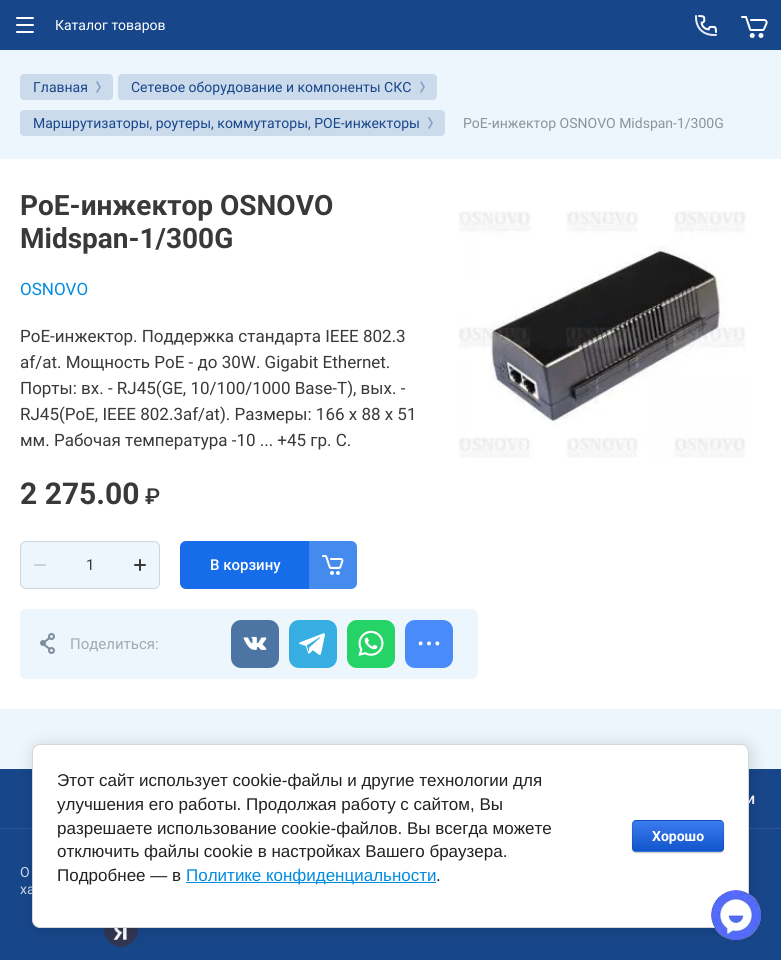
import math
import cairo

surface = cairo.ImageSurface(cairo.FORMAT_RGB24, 781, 960)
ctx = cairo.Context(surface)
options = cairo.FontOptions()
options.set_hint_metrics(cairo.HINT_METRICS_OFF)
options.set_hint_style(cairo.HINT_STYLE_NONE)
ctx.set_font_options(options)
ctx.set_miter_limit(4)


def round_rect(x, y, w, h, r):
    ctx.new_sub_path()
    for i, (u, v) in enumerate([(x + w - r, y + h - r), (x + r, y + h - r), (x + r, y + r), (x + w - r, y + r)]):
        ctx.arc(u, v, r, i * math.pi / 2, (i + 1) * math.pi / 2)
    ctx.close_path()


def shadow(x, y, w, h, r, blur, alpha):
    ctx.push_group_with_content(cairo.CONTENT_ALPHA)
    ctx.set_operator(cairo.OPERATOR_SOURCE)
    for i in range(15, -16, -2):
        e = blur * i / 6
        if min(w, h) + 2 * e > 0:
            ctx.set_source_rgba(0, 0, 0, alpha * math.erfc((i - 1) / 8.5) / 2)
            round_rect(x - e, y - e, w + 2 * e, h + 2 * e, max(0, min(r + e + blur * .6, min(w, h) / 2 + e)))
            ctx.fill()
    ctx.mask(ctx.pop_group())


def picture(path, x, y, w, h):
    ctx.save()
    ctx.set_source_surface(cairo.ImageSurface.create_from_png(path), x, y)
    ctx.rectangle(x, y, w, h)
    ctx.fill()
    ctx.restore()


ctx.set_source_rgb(0.925, 0.961, 0.988)
ctx.paint()
ctx.set_source_rgb(0.09, 0.275, 0.541)
ctx.rectangle(0, 0, 781, 50)
ctx.fill()
picture("img1.png", 16, 17, 18, 16)
ctx.select_font_face("Roboto")
ctx.set_font_size(14)
ctx.set_source_rgb(1, 1, 1)
ctx.move_to(55, 30)
ctx.show_text("Каталог товаров")
picture("img2.png", 695, 15, 22, 21)
picture("img3.png", 741, 16, 27, 22)
ctx.set_source_rgb(0.8, 0.859, 0.922)
round_rect(20, 74, 93, 26, 4)
ctx.fill()
ctx.set_source_rgb(0.09, 0.275, 0.541)
ctx.move_to(33, 92)
ctx.show_text("Главная")
picture("img4.png", 96, 81, 5, 12)
ctx.set_source_rgb(0.8, 0.859, 0.922)
round_rect(118, 74, 319, 26, 4)
ctx.fill()
ctx.set_source_rgb(0.09, 0.275, 0.541)
ctx.move_to(131, 92)
ctx.show_text("Сетевое оборудование и компоненты СКС")
picture("img4.png", 420, 81, 5, 12)
ctx.set_source_rgb(0.8, 0.859, 0.922)
round_rect(20, 110, 425, 26, 4)
ctx.fill()
ctx.set_source_rgb(0.09, 0.275, 0.541)
ctx.move_to(33, 128)
ctx.show_text("Маршрутизаторы, роутеры, коммутаторы, POE-инжекторы")
picture("img4.png", 428, 117, 5, 12)
ctx.set_source_rgb(0.557, 0.576, 0.592)
ctx.move_to(463, 128)
ctx.show_text("PoE-инжектор OSNOVO Midspan-1/300G")
ctx.set_source_rgb(1, 1, 1)
ctx.rectangle(0, 159, 781, 550)
ctx.fill()
ctx.select_font_face("Roboto", cairo.FONT_SLANT_NORMAL, cairo.FONT_WEIGHT_BOLD)
ctx.set_font_size(28)
ctx.set_source_rgb(0.224, 0.224, 0.224)
ctx.move_to(20, 215)
ctx.show_text("PoE-инжектор OSNOVO")
ctx.move_to(20, 248)
ctx.show_text("Midspan-1/300G")
ctx.select_font_face("Roboto")
ctx.set_font_size(17)
ctx.set_source_rgb(0, 0.545, 0.882)
ctx.move_to(20, 295)
ctx.show_text("OSNOVO")
ctx.set_source_rgb(0.224, 0.224, 0.224)
ctx.move_to(20, 342)
ctx.show_text("PoE-инжектор. Поддержка стандарта IEEE 802.3")
ctx.move_to(20, 368)
ctx.show_text("af/at. Мощность PoE - до 30W. Gigabit Ethernet.")
ctx.move_to(20, 394)
ctx.show_text("Порты: вх. - RJ45(GE, 10/100/1000 Base-T), вых. -")
ctx.move_to(20, 420)
ctx.show_text("RJ45(PoE, IEEE 802.3af/at). Размеры: 166 x 88 x 51")
ctx.move_to(20, 446)
ctx.show_text("мм. Рабочая температура -10 ... +45 гр. С.")
ctx.select_font_face("Roboto", cairo.FONT_SLANT_NORMAL, cairo.FONT_WEIGHT_BOLD)
ctx.set_font_size(30)
ctx.move_to(20, 504)
ctx.show_text("2 275.00")
ctx.select_font_face("Roboto Medium")
ctx.set_font_size(22)
ctx.move_to(145, 504)
ctx.show_text("₽")
picture("img5.png", 458, 211, 288, 247)
ctx.set_source_rgb(0.925, 0.961, 0.988)
round_rect(20, 541, 140, 48, 6)
ctx.fill()
round_rect(20.5, 541.5, 139, 47, 5.5)
ctx.set_source_rgba(0.063, 0.129, 0.231, 0.15)
ctx.set_line_width(1)
ctx.stroke()
picture("img6.png", 34, 564, 12, 2)
ctx.select_font_face("Roboto")
ctx.set_font_size(15)
ctx.set_source_rgb(0.224, 0.224, 0.224)
ctx.move_to(86, 570)
ctx.show_text("1")
picture("img7.png", 134, 559, 12, 12)
ctx.set_source_rgb(0.09, 0.427, 0.914)
round_rect(180, 541, 177, 48, 6)
ctx.fill()
ctx.select_font_face("Roboto Medium")
ctx.set_source_rgb(1, 1, 1)
ctx.move_to(210, 570)
ctx.show_text("В корзину")
ctx.set_source_rgba(1, 1, 1, 0.2)
ctx.new_path()
ctx.move_to(309, 541)
ctx.line_to(351, 541)
ctx.curve_to(354.5, 541, 357, 543.5, 357, 547)
ctx.line_to(357, 583)
ctx.curve_to(357, 586.5, 354.5, 589, 351, 589)
ctx.line_to(309, 589)
ctx.close_path()
ctx.fill()
picture("img8.png", 322, 555, 22, 20)
ctx.set_source_rgb(0.925, 0.961, 0.988)
round_rect(20, 609, 458, 70, 6)
ctx.fill()
picture("img9.png", 40, 633, 15, 21)
ctx.select_font_face("Roboto")
ctx.set_source_rgb(0.643, 0.667, 0.682)
ctx.move_to(70, 649)
ctx.show_text("Поделиться:")
ctx.set_source_rgb(0.302, 0.459, 0.639)
round_rect(231, 620, 48, 48, 10)
ctx.fill()
picture("img10.png", 243, 636, 24, 14)
ctx.set_source_rgb(0.216, 0.682, 0.886)
round_rect(289, 620, 48, 48, 10)
ctx.fill()
picture("img11.png", 299, 633, 26, 22)
ctx.set_source_rgb(0.145, 0.827, 0.4)
round_rect(347, 620, 48, 48, 10)
ctx.fill()
picture("img12.png", 358, 630, 26, 26)
ctx.set_source_rgb(0.286, 0.545, 0.98)
round_rect(405, 620, 48, 48, 10)
ctx.fill()
picture("img13.png", 418, 641, 22, 5)
ctx.set_source_rgb(0.09, 0.275, 0.541)
ctx.rectangle(0, 769, 781, 59)
ctx.fill()
ctx.select_font_face("Roboto Medium")
ctx.set_font_size(16)
ctx.set_source_rgb(1, 1, 1)
ctx.move_to(746, 804)
ctx.show_text("и")
ctx.set_source_rgb(0.18, 0.349, 0.588)
ctx.rectangle(0, 828, 781, 1)
ctx.fill()
ctx.set_source_rgb(0.09, 0.275, 0.541)
ctx.rectangle(0, 829, 781, 131)
ctx.fill()
ctx.select_font_face("Roboto")
ctx.set_font_size(14)
ctx.set_source_rgb(0.82, 0.855, 0.91)
ctx.move_to(20, 877)
ctx.show_text("О")
ctx.move_to(20, 894)
ctx.show_text("ха")
picture("img14.png", 104, 928, 34, 19)
ctx.set_source_rgb(0, 0, 0)
shadow(34, 746, 717, 184, 8, 9, 0.14)
ctx.set_source_rgb(1, 1, 1)
round_rect(32.5, 744.5, 716, 183, 7.5)
ctx.fill_preserve()
ctx.set_source_rgb(0.839, 0.839, 0.839)
ctx.stroke()
ctx.select_font_face("Liberation Sans")
ctx.set_font_size(17)
ctx.set_source_rgb(0.129, 0.129, 0.129)
ctx.move_to(57, 786)
ctx.show_text("Этот сайт использует cookie-файлы и другие технологии для")
ctx.move_to(57, 810)
ctx.show_text("улучшения его работы. Продолжая работу с сайтом, Вы")
ctx.move_to(57, 834)
ctx.show_text("разрешаете использование cookie-файлов. Вы всегда можете")
ctx.move_to(57, 857)
ctx.show_text("отключить файлы cookie в настройках Вашего браузера.")
ctx.move_to(57, 881)
ctx.show_text("Подробнее — в")
ctx.set_source_rgb(0, 0.545, 0.882)
ctx.rectangle(186, 882, 250, 1)
ctx.fill()
ctx.move_to(186, 881)
ctx.show_text("Политике конфиденциальности")
ctx.set_source_rgb(0.129, 0.129, 0.129)
ctx.move_to(436, 881)
ctx.show_text(".")
ctx.set_source_rgb(0, 0, 0)
shadow(632, 821, 92, 32, 4, 0.5, 0.2)
ctx.save()
round_rect(632, 820, 92, 32, 4)
ctx.clip()
gradient = cairo.LinearGradient(678, 791, 678, 821)
gradient.add_color_stop_rgba(0, 0.231, 0.486, 0.937, 1)
gradient.add_color_stop_rgba(1, 0.067, 0.333, 0.8, 1)
ctx.set_source(gradient)
ctx.rectangle(632, 820, 92, 1)
ctx.fill()
gradient = cairo.LinearGradient(678, 821, 678, 851)
gradient.add_color_stop_rgba(0, 0.231, 0.486, 0.937, 1)
gradient.add_color_stop_rgba(1, 0.067, 0.333, 0.8, 1)
ctx.set_source(gradient)
ctx.rectangle(632, 821, 92, 30)
ctx.fill()
gradient = cairo.LinearGradient(678, 851, 678, 881)
gradient.add_color_stop_rgba(0, 0.231, 0.486, 0.937, 1)
gradient.add_color_stop_rgba(1, 0.067, 0.333, 0.8, 1)
ctx.set_source(gradient)
ctx.rectangle(632, 851, 92, 1)
ctx.fill()
ctx.restore()
round_rect(632.5, 820.5, 91, 31, 3.5)
ctx.set_source_rgba(0, 0, 0, 0.1)
ctx.stroke()
ctx.select_font_face("Roboto", cairo.FONT_SLANT_NORMAL, cairo.FONT_WEIGHT_BOLD)
ctx.set_font_size(14)
ctx.set_source_rgb(1, 1, 1)
ctx.move_to(652, 841)
ctx.show_text("Хорошо")
picture("img15.png", 711, 890, 50, 50)
surface.write_to_png("page.png")
